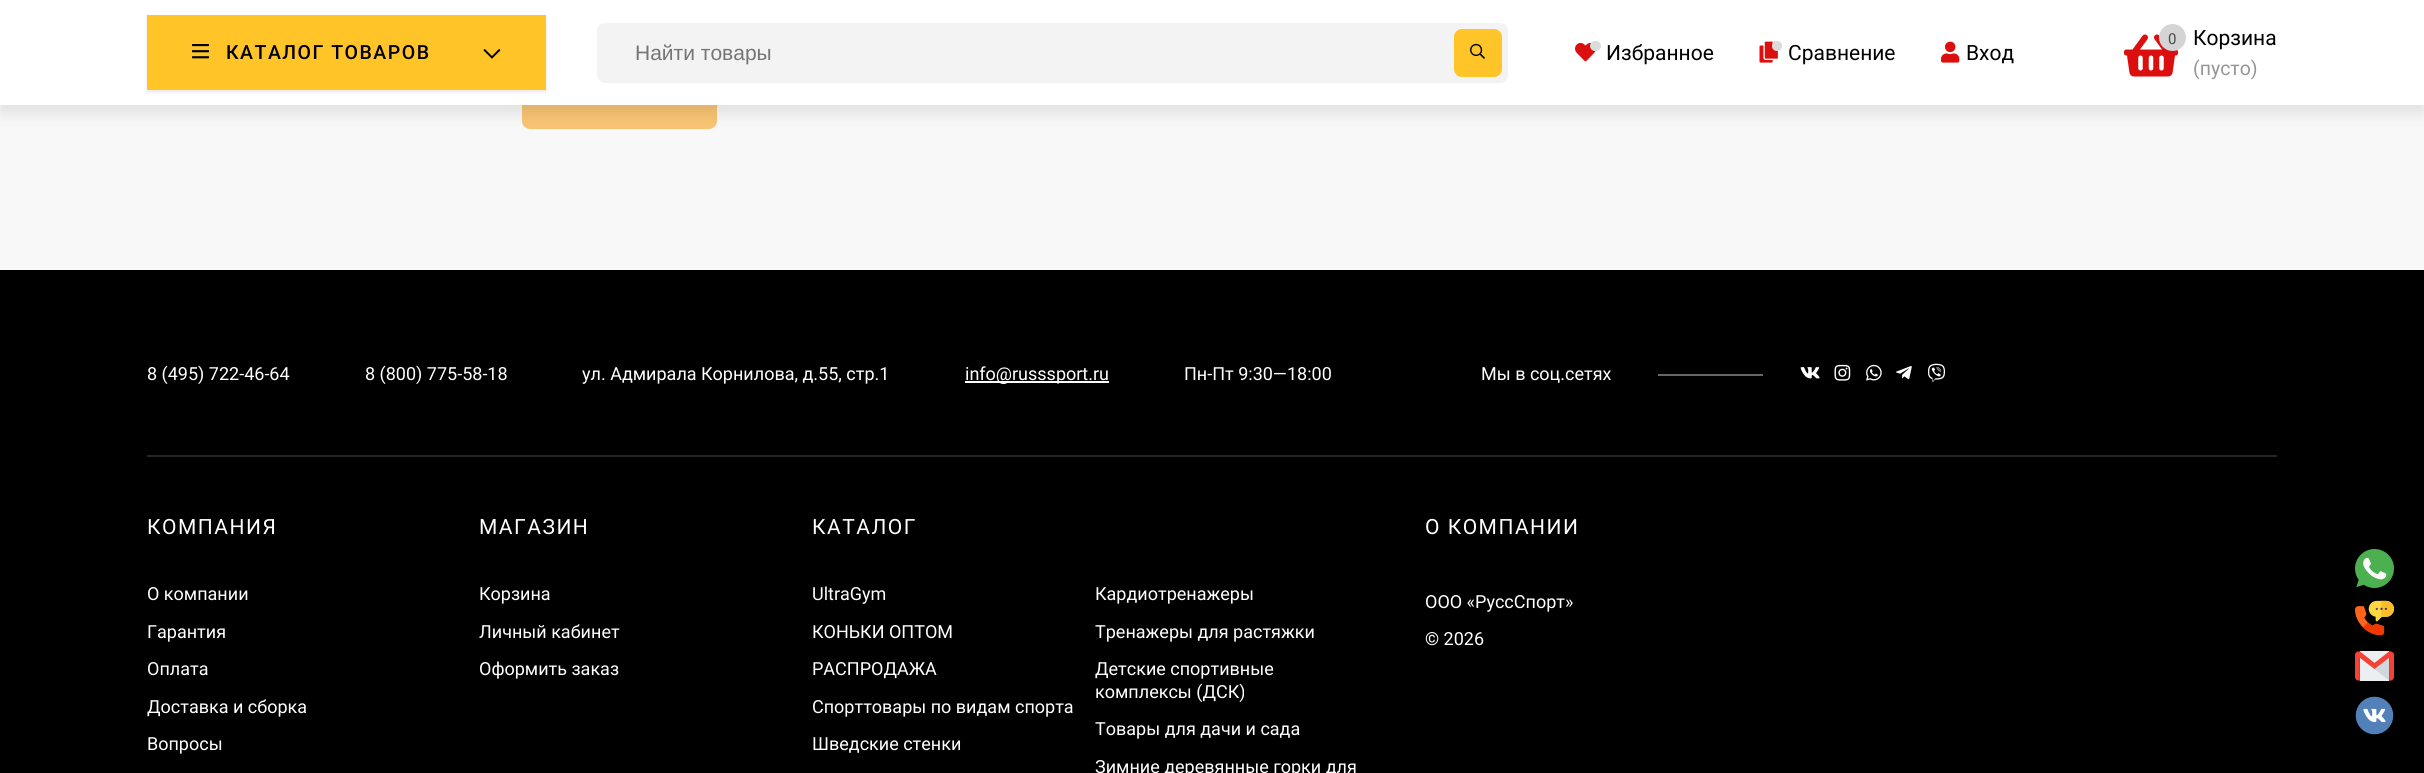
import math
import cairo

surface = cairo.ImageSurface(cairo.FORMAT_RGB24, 2424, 773)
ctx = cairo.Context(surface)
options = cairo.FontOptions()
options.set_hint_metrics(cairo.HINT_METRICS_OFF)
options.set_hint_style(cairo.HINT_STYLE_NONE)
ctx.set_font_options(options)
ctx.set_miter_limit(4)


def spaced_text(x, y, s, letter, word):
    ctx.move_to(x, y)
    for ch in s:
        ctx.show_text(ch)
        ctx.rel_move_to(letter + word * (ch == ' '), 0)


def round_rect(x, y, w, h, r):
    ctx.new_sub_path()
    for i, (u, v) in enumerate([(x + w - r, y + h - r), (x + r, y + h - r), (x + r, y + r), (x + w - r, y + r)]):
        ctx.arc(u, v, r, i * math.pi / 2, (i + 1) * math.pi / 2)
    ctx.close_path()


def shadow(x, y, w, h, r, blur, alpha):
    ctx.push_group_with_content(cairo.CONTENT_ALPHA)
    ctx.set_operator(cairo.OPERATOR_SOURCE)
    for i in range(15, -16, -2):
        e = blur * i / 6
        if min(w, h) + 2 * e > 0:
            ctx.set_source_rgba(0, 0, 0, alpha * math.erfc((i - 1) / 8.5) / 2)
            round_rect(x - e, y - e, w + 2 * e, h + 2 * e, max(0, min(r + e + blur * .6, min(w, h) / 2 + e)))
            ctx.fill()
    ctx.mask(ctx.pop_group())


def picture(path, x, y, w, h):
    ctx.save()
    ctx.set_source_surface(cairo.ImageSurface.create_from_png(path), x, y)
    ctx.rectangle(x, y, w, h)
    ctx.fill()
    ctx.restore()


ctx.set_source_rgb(0.969, 0.969, 0.969)
ctx.paint()
ctx.set_source_rgb(0.969, 0.769, 0.451)
round_rect(522, 54, 195, 75, 8)
ctx.fill()
ctx.set_source_rgb(0, 0, 0)
shadow(0, 8, 2424, 105, 0, 7.5, 0.1)
ctx.set_source_rgb(1, 1, 1)
ctx.rectangle(0, 0, 2424, 105)
ctx.fill()
ctx.set_source_rgb(0, 0, 0)
shadow(147, 17, 399, 75, 0, 2, 0.1)
ctx.set_source_rgb(1, 0.769, 0.157)
ctx.rectangle(147, 15, 399, 75)
ctx.fill()
picture("img1.png", 192, 44, 18, 15)
ctx.select_font_face("Roboto Medium")
ctx.set_font_size(19.5)
ctx.set_source_rgb(0, 0, 0)
spaced_text(226, 59, "КАТАЛОГ ТОВАРОВ", 1.5, 0)
picture("img2.png", 483, 49, 18, 10)
ctx.set_source_rgb(0.953, 0.953, 0.953)
round_rect(597, 23, 911, 60, 8)
ctx.fill()
ctx.select_font_face("Liberation Sans")
ctx.set_font_size(21)
ctx.set_source_rgb(0.459, 0.459, 0.459)
ctx.move_to(635, 60)
ctx.show_text("Найти товары")
ctx.set_source_rgb(1, 0.769, 0.157)
round_rect(1454, 29, 48, 48, 8)
ctx.fill()
picture("img3.png", 1470, 43, 15, 16)
picture("img4.png", 1575, 42, 21, 20)
ctx.set_source_rgb(0.863, 0.863, 0.863)
round_rect(1590, 41, 11, 10, 5)
ctx.fill()
ctx.select_font_face("Roboto")
ctx.set_source_rgb(0, 0, 0)
ctx.move_to(1606, 60)
ctx.show_text("Избранное")
picture("img5.png", 1759, 41, 19, 22)
ctx.set_source_rgb(0.863, 0.863, 0.863)
ctx.arc(1777, 46, 5, 0, 2 * math.pi)
ctx.fill()
ctx.set_source_rgb(0, 0, 0)
ctx.move_to(1788, 60)
ctx.show_text("Сравнение")
picture("img6.png", 1941, 41, 19, 22)
ctx.move_to(1966, 60)
ctx.show_text("Вход")
picture("img7.png", 2124, 34, 54, 43)
ctx.set_source_rgb(0.831, 0.831, 0.831)
ctx.arc(2172.5, 37.5, 13.5, 0, 2 * math.pi)
ctx.fill()
ctx.set_font_size(15)
ctx.set_source_rgb(0.29, 0.29, 0.29)
ctx.move_to(2168, 44)
ctx.show_text("0")
ctx.set_font_size(21)
ctx.set_source_rgb(0, 0, 0)
ctx.move_to(2193, 45)
ctx.show_text("Корзина")
ctx.set_font_size(19.5)
ctx.set_source_rgb(0.588, 0.588, 0.588)
ctx.move_to(2193, 75)
ctx.show_text("(пусто)")
ctx.set_source_rgb(0, 0, 0)
ctx.rectangle(0, 270, 2424, 503)
ctx.fill()
picture("img8.png", 2355, 549, 39, 39)
picture("img9.png", 2355, 600, 39, 36)
picture("img10.png", 2355, 651, 39, 30)
picture("img11.png", 2355, 696, 39, 39)
ctx.set_source_rgb(0.149, 0.149, 0.149)
ctx.rectangle(147, 455, 2130, 2)
ctx.fill()
ctx.set_font_size(18)
ctx.set_source_rgb(1, 1, 1)
ctx.move_to(147, 380)
ctx.show_text("8 (495) 722-46-64")
ctx.move_to(365, 380)
ctx.show_text("8 (800) 775-58-18")
ctx.move_to(582, 380)
ctx.show_text("ул. Адмирала Корнилова, д.55, стр.1")
ctx.rectangle(965, 381, 144, 2)
ctx.fill()
ctx.move_to(965, 380)
ctx.show_text("info@russsport.ru")
ctx.move_to(1184, 380)
ctx.show_text("Пн-Пт 9:30—18:00")
ctx.move_to(1481, 380)
ctx.show_text("Мы в соц.сетях")
ctx.set_source_rgb(0.4, 0.4, 0.4)
ctx.rectangle(1658, 374, 105, 2)
ctx.fill()
picture("img12.png", 1800, 367, 20, 12)
picture("img13.png", 1834, 364, 17, 17)
picture("img14.png", 1866, 364, 16, 17)
picture("img15.png", 1896, 366, 16, 14)
picture("img16.png", 1928, 363, 17, 19)
ctx.set_font_size(21)
ctx.set_source_rgb(1, 1, 1)
spaced_text(147, 534, "КОМПАНИЯ", 1.5, 0)
ctx.set_font_size(18)
ctx.move_to(147, 600)
ctx.show_text("О компании")
ctx.move_to(147, 638)
ctx.show_text("Гарантия")
ctx.move_to(147, 675)
ctx.show_text("Оплата")
ctx.move_to(147, 713)
ctx.show_text("Доставка и сборка")
ctx.move_to(147, 750)
ctx.show_text("Вопросы")
ctx.set_font_size(21)
spaced_text(479, 534, "МАГАЗИН", 1.5, 0)
ctx.set_font_size(18)
ctx.move_to(479, 600)
ctx.show_text("Корзина")
ctx.move_to(479, 638)
ctx.show_text("Личный кабинет")
ctx.move_to(479, 675)
ctx.show_text("Оформить заказ")
ctx.set_font_size(21)
spaced_text(812, 534, "КАТАЛОГ", 1.5, 0)
ctx.set_font_size(18)
ctx.move_to(812, 600)
ctx.show_text("UltraGym")
ctx.move_to(1095, 600)
ctx.show_text("Кардиотренажеры")
ctx.move_to(812, 638)
ctx.show_text("КОНЬКИ ОПТОМ")
ctx.move_to(1095, 638)
ctx.show_text("Тренажеры для растяжки")
ctx.move_to(812, 675)
ctx.show_text("РАСПРОДАЖА")
ctx.move_to(1095, 675)
ctx.show_text("Детские спортивные")
ctx.move_to(1095, 698)
ctx.show_text("комплексы (ДСК)")
ctx.move_to(812, 713)
ctx.show_text("Спорттовары по видам спорта")
ctx.move_to(1095, 735)
ctx.show_text("Товары для дачи и сада")
ctx.move_to(812, 750)
ctx.show_text("Шведские стенки")
ctx.move_to(1095, 773)
ctx.show_text("Зимние деревянные горки для")
ctx.set_font_size(21)
spaced_text(1425, 534, "О КОМПАНИИ", 1.5, 0)
ctx.set_font_size(18)
ctx.move_to(1425, 608)
ctx.show_text("ООО «РуссСпорт»")
ctx.move_to(1425, 645)
ctx.show_text("© 2026")
surface.write_to_png("page.png")
